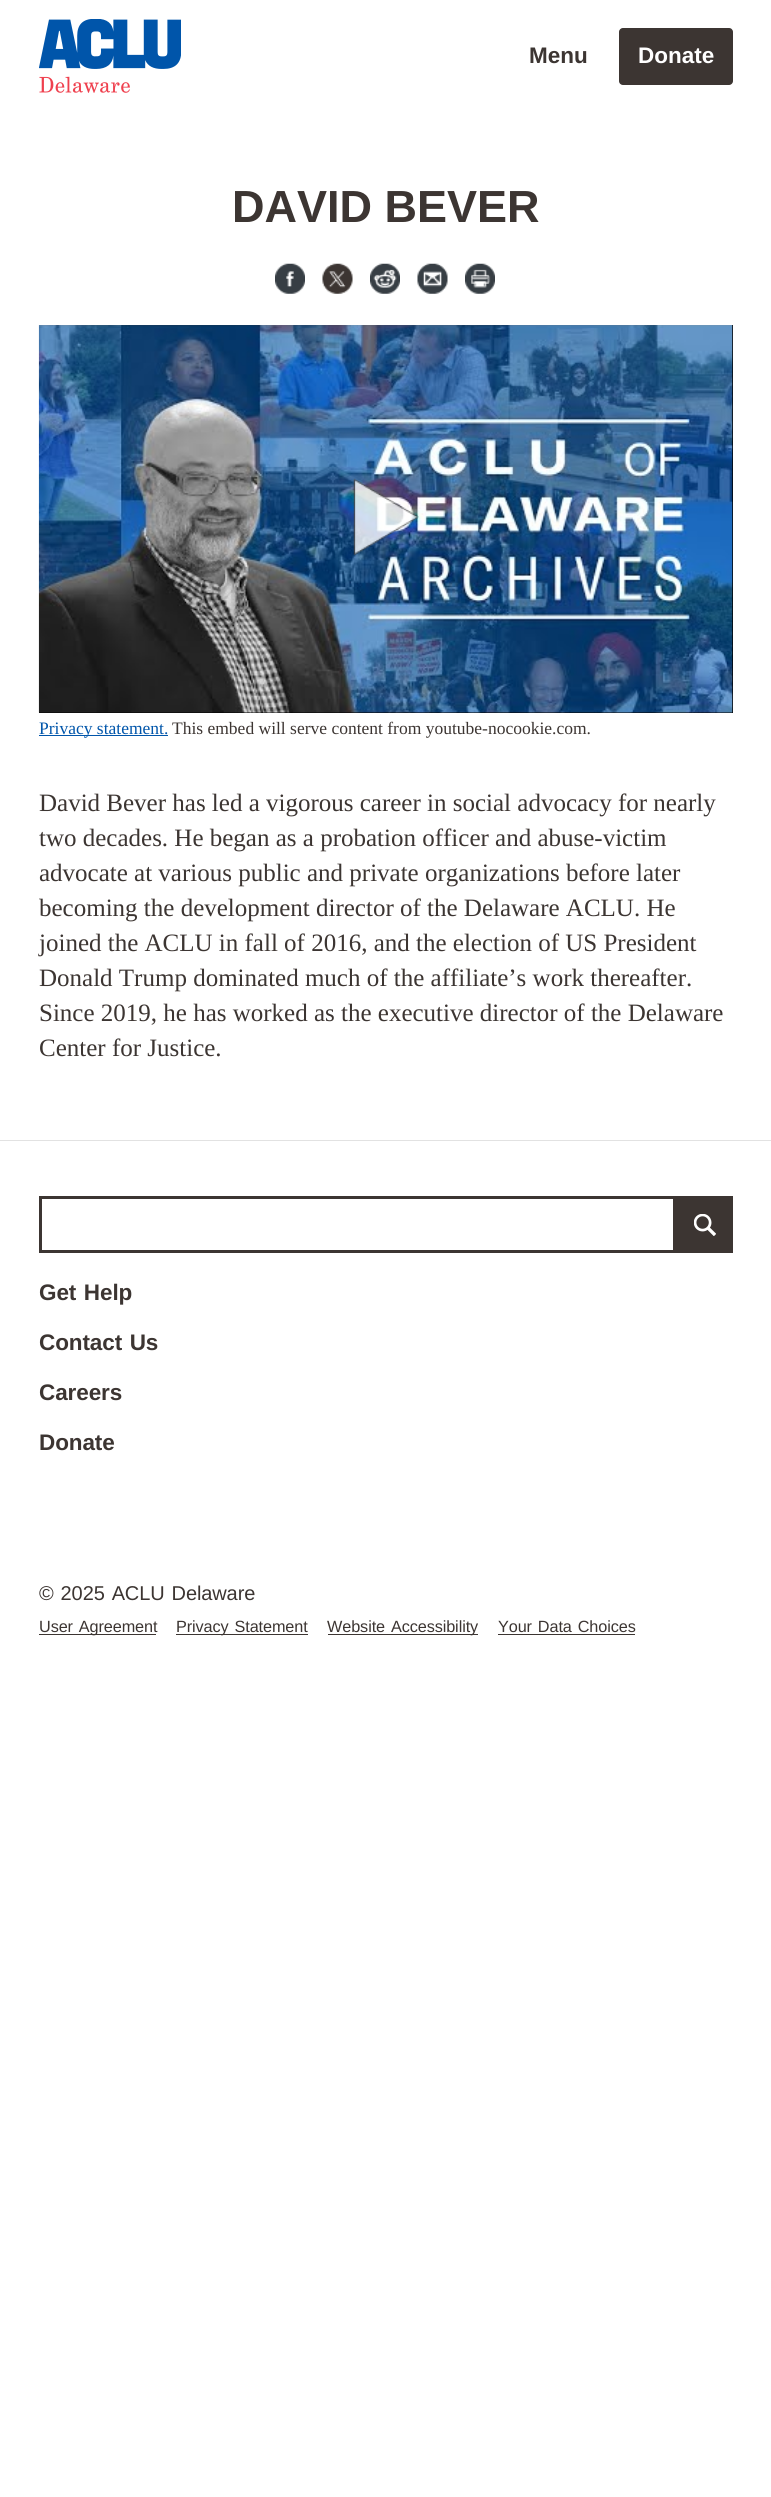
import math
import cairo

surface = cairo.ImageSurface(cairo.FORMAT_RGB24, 771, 2497)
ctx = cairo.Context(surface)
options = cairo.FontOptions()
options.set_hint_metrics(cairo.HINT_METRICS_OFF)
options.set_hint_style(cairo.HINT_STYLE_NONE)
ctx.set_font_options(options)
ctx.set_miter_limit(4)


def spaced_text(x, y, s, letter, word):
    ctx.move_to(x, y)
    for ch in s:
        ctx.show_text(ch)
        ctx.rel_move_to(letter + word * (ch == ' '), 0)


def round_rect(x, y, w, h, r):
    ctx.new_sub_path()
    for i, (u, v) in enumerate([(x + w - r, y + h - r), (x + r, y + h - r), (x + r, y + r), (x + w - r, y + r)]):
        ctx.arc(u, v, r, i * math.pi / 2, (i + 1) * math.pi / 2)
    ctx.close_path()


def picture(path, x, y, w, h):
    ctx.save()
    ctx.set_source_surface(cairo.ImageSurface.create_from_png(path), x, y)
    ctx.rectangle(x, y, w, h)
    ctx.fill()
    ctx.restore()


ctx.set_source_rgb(1, 1, 1)
ctx.paint()
picture("img1.png", 39, 19, 142, 74)
ctx.select_font_face("Liberation Sans", cairo.FONT_SLANT_NORMAL, cairo.FONT_WEIGHT_BOLD)
ctx.set_font_size(22.5)
ctx.set_source_rgb(0.235, 0.208, 0.196)
ctx.move_to(529, 63)
ctx.show_text("Menu")
round_rect(619, 28, 114, 57, 4)
ctx.fill()
ctx.set_source_rgb(1, 1, 1)
ctx.move_to(638, 63)
ctx.show_text("Donate")
ctx.set_font_size(45)
ctx.set_source_rgb(0.235, 0.208, 0.196)
ctx.move_to(232, 222)
ctx.show_text("DAVID BEVER")
picture("img2.png", 275, 263, 30, 31)
picture("img3.png", 322, 263, 31, 31)
picture("img4.png", 370, 263, 30, 31)
picture("img5.png", 417, 263, 31, 31)
picture("img6.png", 465, 263, 30, 31)
ctx.set_source_rgb(0, 0, 0)
ctx.rectangle(39, 325, 694, 388)
ctx.fill()
picture("img7.png", 38, 325, 695, 388)
picture("img8.png", 353, 478, 66, 78)
ctx.set_source_rgb(0, 0.333, 0.667)
ctx.rectangle(39, 735, 129, 1)
ctx.fill()
ctx.select_font_face("Liberation Serif")
ctx.set_font_size(17.5)
ctx.move_to(39, 734)
ctx.show_text("Privacy statement.")
ctx.set_source_rgb(0.235, 0.208, 0.196)
ctx.move_to(172, 734)
ctx.show_text("This embed will serve content from youtube-nocookie.com.")
ctx.set_font_size(25)
ctx.move_to(39, 811)
ctx.show_text("David Bever has led a vigorous career in social advocacy for nearly")
ctx.move_to(39, 846)
ctx.show_text("two decades. He began as a probation officer and abuse-victim")
ctx.move_to(39, 881)
ctx.show_text("advocate at various public and private organizations before later")
ctx.move_to(39, 916)
ctx.show_text("becoming the development director of the Delaware ACLU. He")
ctx.move_to(39, 951)
ctx.show_text("joined the ACLU in fall of 2016, and the election of US President")
ctx.move_to(39, 986)
ctx.show_text("Donald Trump dominated much of the affiliate’s work thereafter.")
ctx.move_to(39, 1021)
ctx.show_text("Since 2019, he has worked as the executive director of the Delaware")
ctx.move_to(39, 1056)
ctx.show_text("Center for Justice.")
ctx.set_source_rgb(0.886, 0.886, 0.886)
ctx.rectangle(0, 1140, 771, 1)
ctx.fill()
ctx.rectangle(40.5, 1197.5, 634, 54)
ctx.set_source_rgb(0.235, 0.208, 0.196)
ctx.set_line_width(3)
ctx.stroke()
ctx.rectangle(676, 1196, 57, 57)
ctx.fill()
picture("img9.png", 694, 1214, 22, 22)
ctx.select_font_face("Liberation Sans", cairo.FONT_SLANT_NORMAL, cairo.FONT_WEIGHT_BOLD)
ctx.set_font_size(22.5)
spaced_text(39, 1300, "Get Help", -0.1, 1.5)
spaced_text(39, 1350, "Contact Us", -0.1, 1.5)
spaced_text(39, 1400, "Careers", -0.1, 0)
spaced_text(39, 1450, "Donate", -0.1, 0)
ctx.select_font_face("Liberation Sans")
ctx.set_font_size(20)
spaced_text(39, 1600, "© 2025 ACLU Delaware", -0.1, 1.5)
ctx.rectangle(39, 1634, 117, 1)
ctx.fill()
ctx.set_font_size(16.25)
spaced_text(39, 1632, "User Agreement", -0.1, 1.5)
ctx.rectangle(176, 1634, 132, 1)
ctx.fill()
spaced_text(176, 1632, "Privacy Statement", -0.1, 1.5)
ctx.rectangle(328, 1634, 150, 1)
ctx.fill()
spaced_text(327, 1632, "Website Accessibility", -0.1, 1.5)
spaced_text(498, 1632, "Your Data Choices", -0.1, 1.5)
ctx.rectangle(498, 1634, 137, 1)
ctx.fill()
surface.write_to_png("page.png")
